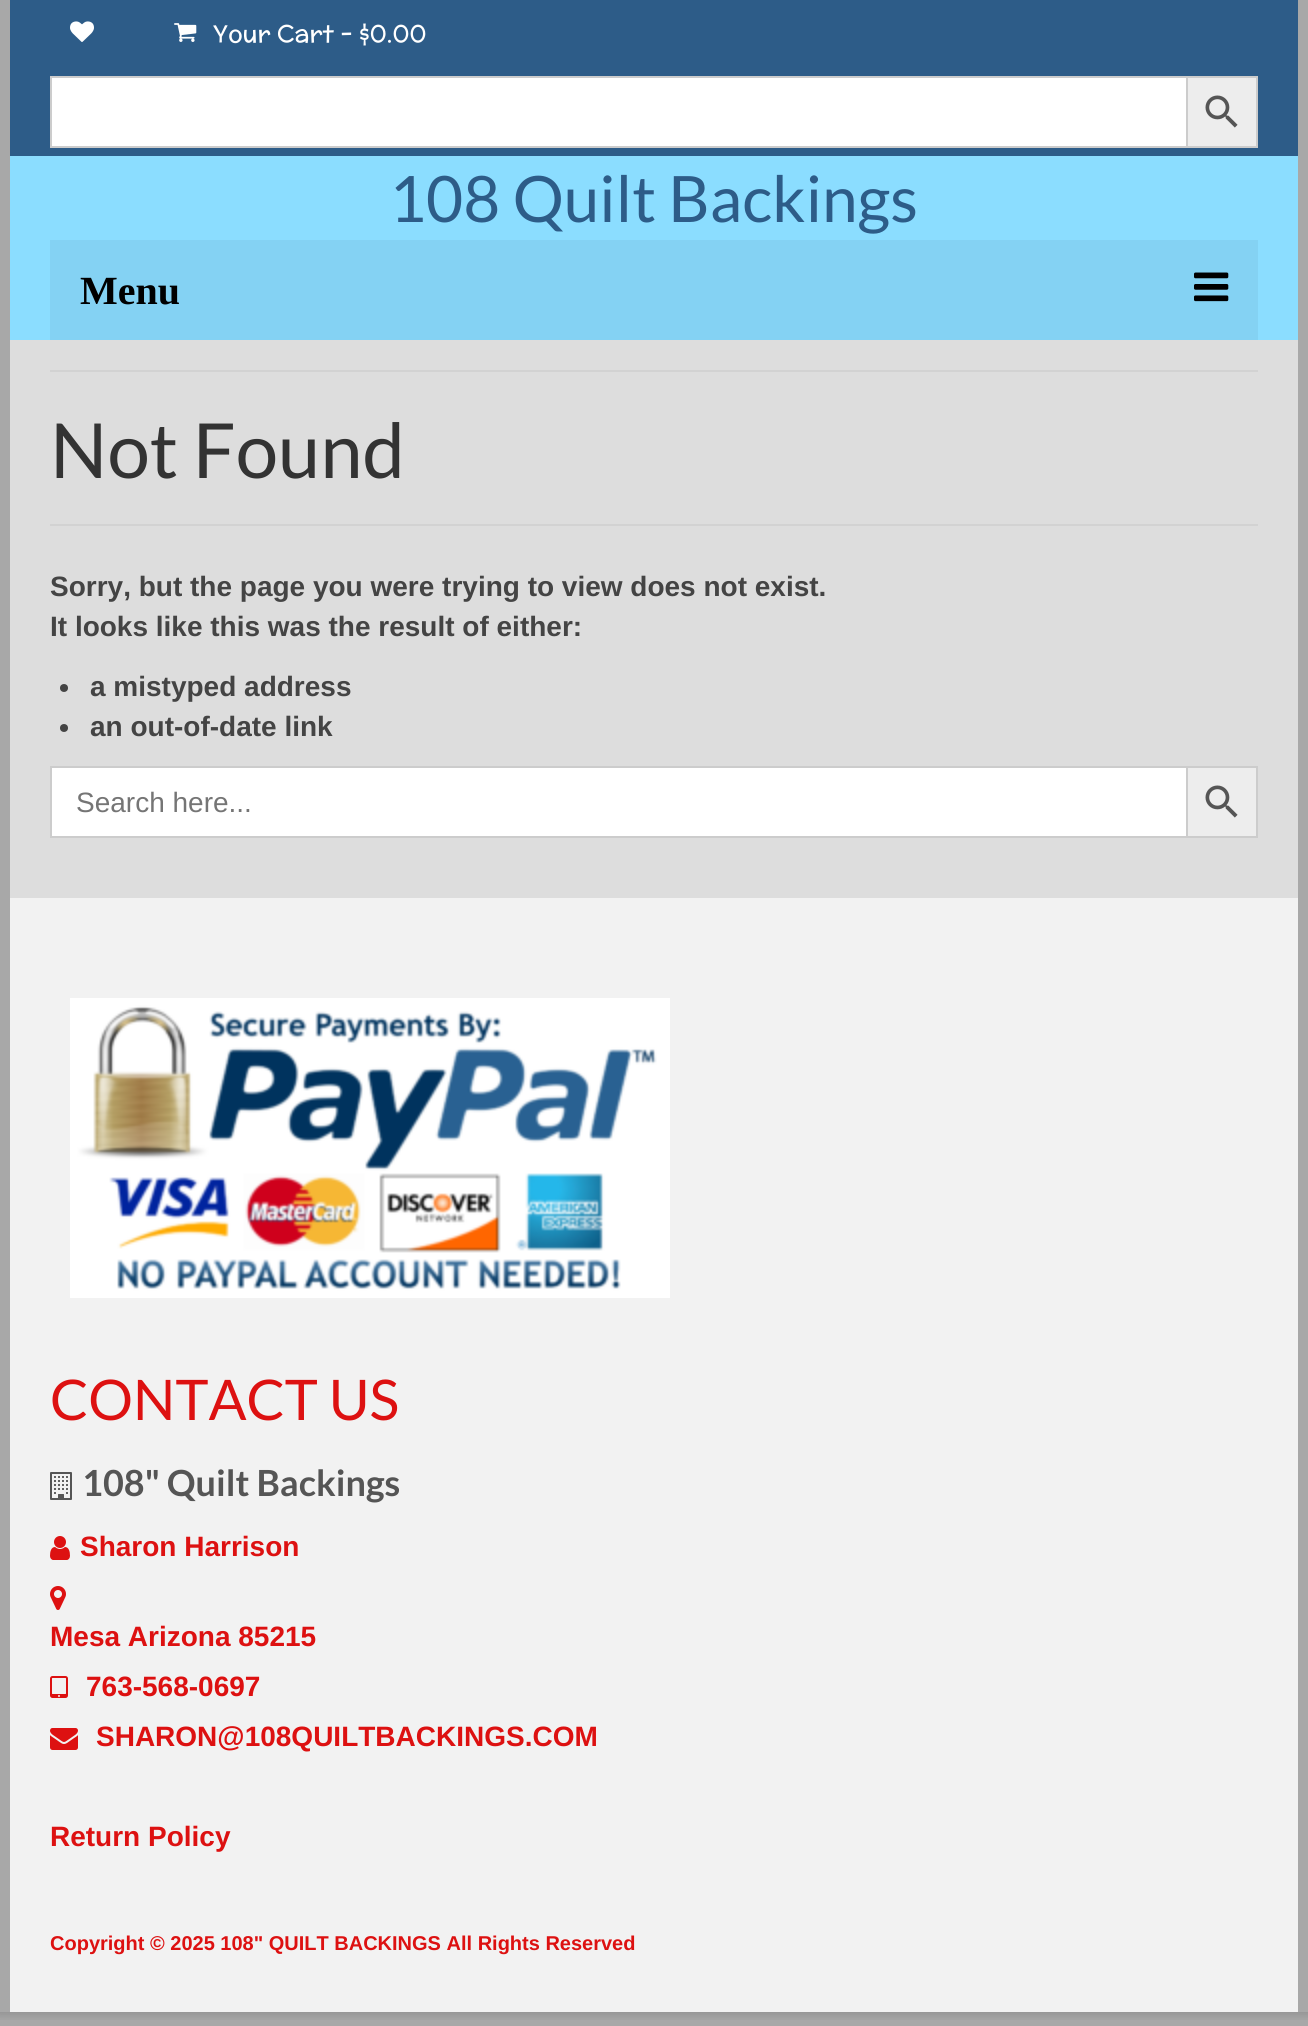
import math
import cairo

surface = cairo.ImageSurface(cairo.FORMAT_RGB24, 1308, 2026)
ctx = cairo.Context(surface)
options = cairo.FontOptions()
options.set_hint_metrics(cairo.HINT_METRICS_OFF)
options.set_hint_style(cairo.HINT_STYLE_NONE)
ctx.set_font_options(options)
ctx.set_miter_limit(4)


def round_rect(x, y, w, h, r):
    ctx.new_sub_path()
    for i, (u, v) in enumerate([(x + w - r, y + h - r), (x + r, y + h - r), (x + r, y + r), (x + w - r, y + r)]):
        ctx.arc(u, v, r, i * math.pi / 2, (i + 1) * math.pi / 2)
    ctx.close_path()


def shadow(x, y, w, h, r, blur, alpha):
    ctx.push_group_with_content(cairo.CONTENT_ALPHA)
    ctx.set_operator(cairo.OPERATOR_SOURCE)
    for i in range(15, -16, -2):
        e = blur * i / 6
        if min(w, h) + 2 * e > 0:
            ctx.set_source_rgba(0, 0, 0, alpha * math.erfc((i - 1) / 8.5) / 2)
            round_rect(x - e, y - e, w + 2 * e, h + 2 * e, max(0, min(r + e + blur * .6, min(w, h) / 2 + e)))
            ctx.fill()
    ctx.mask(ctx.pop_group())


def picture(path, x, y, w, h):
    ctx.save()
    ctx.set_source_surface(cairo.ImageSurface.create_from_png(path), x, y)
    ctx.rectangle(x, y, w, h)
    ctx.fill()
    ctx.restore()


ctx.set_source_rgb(0.659, 0.659, 0.659)
ctx.paint()
ctx.save()
ctx.rectangle(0, 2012, 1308, 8)
ctx.clip()
ctx.set_source_rgb(0, 0, 0)
shadow(-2, -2, 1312, 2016, 0, 5, 0.16)
ctx.restore()
ctx.set_source_rgb(0.545, 0.867, 1)
ctx.rectangle(10, 156, 1288, 184)
ctx.fill()
ctx.set_source_rgb(0.176, 0.361, 0.533)
ctx.rectangle(10, 0, 1288, 156)
ctx.fill()
picture("img1.png", 70, 21, 24, 21)
picture("img2.png", 174, 23, 23, 19)
ctx.select_font_face("McLaren")
ctx.set_font_size(24)
ctx.set_source_rgb(1, 1, 1)
ctx.move_to(213, 42)
ctx.show_text("Your Cart - $0.00")
ctx.rectangle(52, 78, 1134, 68)
ctx.fill()
ctx.set_source_rgb(0.8, 0.8, 0.8)
ctx.rectangle(50, 76, 1136, 2)
ctx.fill()
ctx.rectangle(50, 146, 1136, 2)
ctx.fill()
ctx.rectangle(50, 76, 2, 72)
ctx.fill()
ctx.set_source_rgb(0.929, 0.929, 0.929)
ctx.rectangle(1187, 77, 70, 70)
ctx.fill_preserve()
ctx.set_source_rgb(0.8, 0.8, 0.8)
ctx.stroke()
picture("img3.png", 1205, 95, 33, 33)
ctx.select_font_face("Lato")
ctx.set_font_size(64)
ctx.set_source_rgb(0.176, 0.361, 0.533)
ctx.move_to(389, 222)
ctx.show_text("108 Quilt Backings")
ctx.set_source_rgb(0.518, 0.824, 0.953)
ctx.rectangle(50, 240, 1208, 100)
ctx.fill()
ctx.select_font_face("Liberation Serif", cairo.FONT_SLANT_NORMAL, cairo.FONT_WEIGHT_BOLD)
ctx.set_font_size(40)
ctx.set_source_rgb(0, 0, 0)
ctx.move_to(80, 304)
ctx.show_text("Menu")
picture("img4.png", 1194, 272, 35, 30)
ctx.set_source_rgb(0.867, 0.867, 0.867)
ctx.rectangle(10, 340, 1288, 558)
ctx.fill()
ctx.set_source_rgb(0.824, 0.824, 0.824)
ctx.rectangle(50, 370, 1208, 2)
ctx.fill()
ctx.rectangle(50, 524, 1208, 2)
ctx.fill()
ctx.select_font_face("Lato")
ctx.set_font_size(76)
ctx.set_source_rgb(0.2, 0.2, 0.2)
ctx.move_to(50, 478)
ctx.show_text("Not Found")
ctx.select_font_face("Liberation Sans", cairo.FONT_SLANT_NORMAL, cairo.FONT_WEIGHT_BOLD)
ctx.set_font_size(28)
ctx.set_source_rgb(0.267, 0.267, 0.267)
ctx.move_to(50, 596)
ctx.show_text("Sorry, but the page you were trying to view does not exist.")
ctx.move_to(50, 636)
ctx.show_text("It looks like this was the result of either:")
ctx.new_path()
ctx.arc(64, 688, 4, 0, 2 * math.pi)
ctx.fill()
ctx.move_to(90, 696)
ctx.show_text("a mistyped address")
ctx.new_path()
ctx.arc(64, 728, 4, 0, 2 * math.pi)
ctx.fill()
ctx.move_to(90, 736)
ctx.show_text("an out-of-date link")
ctx.set_source_rgb(1, 1, 1)
ctx.rectangle(52, 768, 1134, 68)
ctx.fill()
ctx.set_source_rgb(0.8, 0.8, 0.8)
ctx.rectangle(50, 766, 1136, 2)
ctx.fill()
ctx.rectangle(50, 836, 1136, 2)
ctx.fill()
ctx.rectangle(50, 766, 2, 72)
ctx.fill()
ctx.select_font_face("Liberation Sans")
ctx.set_source_rgb(0.459, 0.459, 0.459)
ctx.move_to(76, 812)
ctx.show_text("Search here...")
ctx.set_source_rgb(0.929, 0.929, 0.929)
ctx.rectangle(1187, 767, 70, 70)
ctx.fill_preserve()
ctx.set_source_rgb(0.8, 0.8, 0.8)
ctx.stroke()
picture("img3.png", 1205, 785, 33, 33)
ctx.set_source_rgb(0.949, 0.949, 0.949)
ctx.rectangle(10, 898, 1288, 1114)
ctx.fill()
picture("img5.png", 70, 998, 600, 300)
ctx.select_font_face("Lato")
ctx.set_font_size(56)
ctx.set_source_rgb(0.867, 0.067, 0.067)
ctx.move_to(50, 1420)
ctx.show_text("CONTACT US")
picture("img6.png", 50, 1472, 22, 28)
ctx.select_font_face("Lato", cairo.FONT_SLANT_NORMAL, cairo.FONT_WEIGHT_BOLD)
ctx.set_font_size(36)
ctx.set_source_rgb(0.333, 0.333, 0.333)
ctx.move_to(82, 1496)
ctx.show_text("108\" Quilt Backings")
picture("img7.png", 50, 1536, 20, 24)
ctx.select_font_face("Liberation Sans", cairo.FONT_SLANT_NORMAL, cairo.FONT_WEIGHT_BOLD)
ctx.set_font_size(28)
ctx.set_source_rgb(0.867, 0.067, 0.067)
ctx.move_to(80, 1556)
ctx.show_text("Sharon Harrison")
picture("img8.png", 50, 1586, 16, 24)
ctx.move_to(50, 1646)
ctx.show_text("Mesa Arizona 85215")
picture("img9.png", 50, 1676, 18, 22)
ctx.move_to(86, 1696)
ctx.show_text("763-568-0697")
picture("img10.png", 50, 1728, 28, 22)
ctx.move_to(96, 1746)
ctx.show_text("SHARON@108QUILTBACKINGS.COM")
ctx.move_to(50, 1846)
ctx.show_text("Return Policy")
ctx.set_font_size(20)
ctx.move_to(50, 1950)
ctx.show_text("Copyright © 2025 108\" QUILT BACKINGS All Rights Reserved")
surface.write_to_png("page.png")
